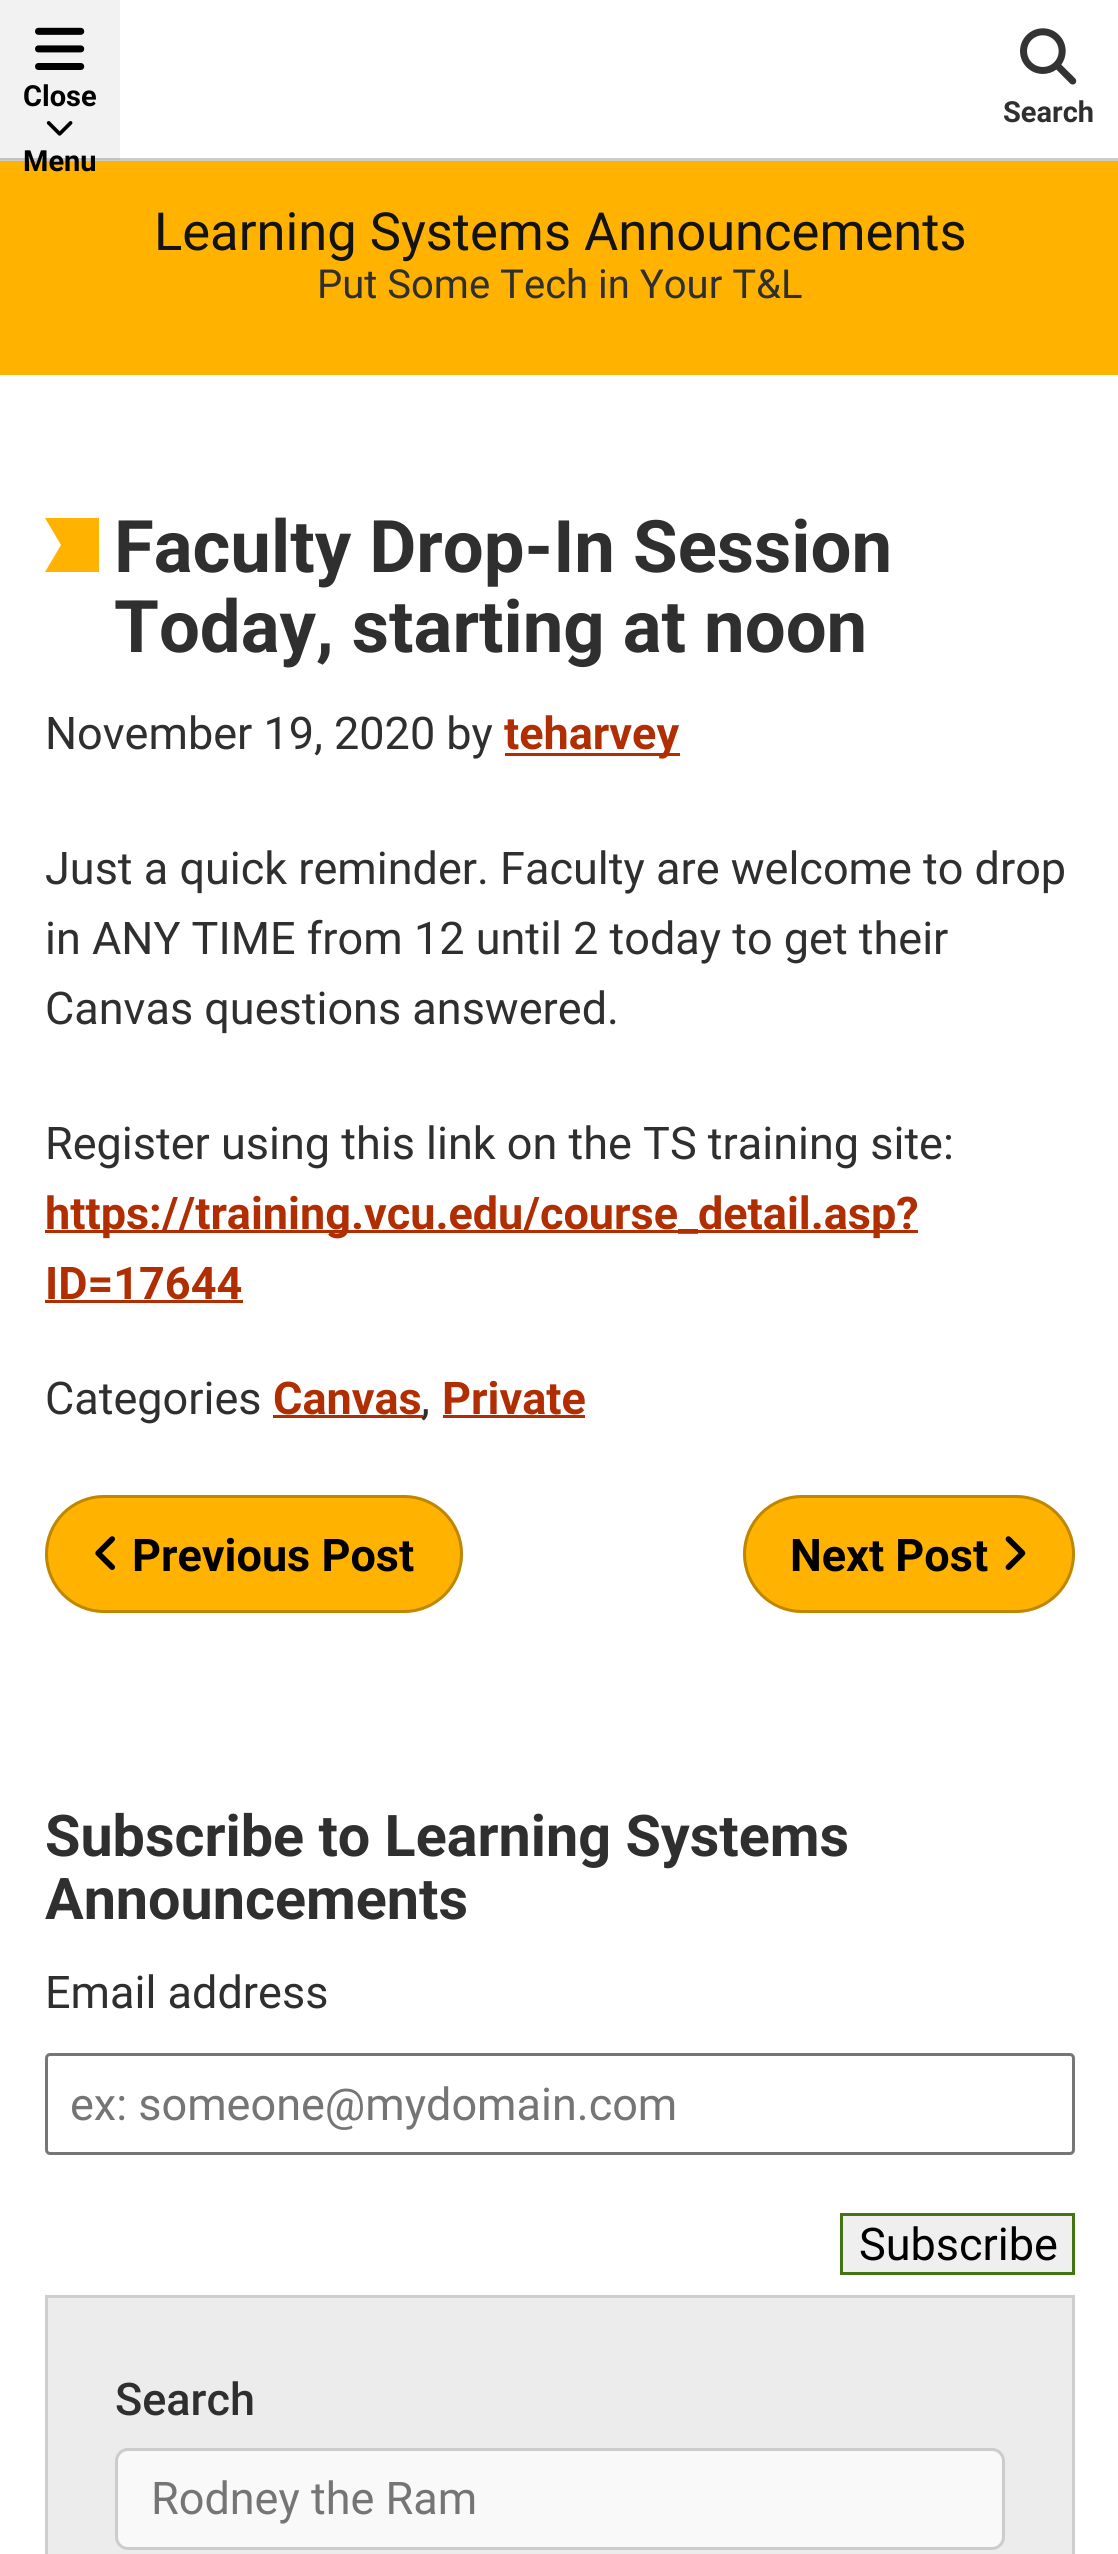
import math
import cairo

surface = cairo.ImageSurface(cairo.FORMAT_RGB24, 1118, 2554)
ctx = cairo.Context(surface)
options = cairo.FontOptions()
options.set_hint_metrics(cairo.HINT_METRICS_OFF)
options.set_hint_style(cairo.HINT_STYLE_NONE)
ctx.set_font_options(options)
ctx.set_miter_limit(4)


def round_rect(x, y, w, h, r):
    ctx.new_sub_path()
    for i, (u, v) in enumerate([(x + w - r, y + h - r), (x + r, y + h - r), (x + r, y + r), (x + w - r, y + r)]):
        ctx.arc(u, v, r, i * math.pi / 2, (i + 1) * math.pi / 2)
    ctx.close_path()


def picture(path, x, y, w, h):
    ctx.save()
    ctx.set_source_surface(cairo.ImageSurface.create_from_png(path), x, y)
    ctx.rectangle(x, y, w, h)
    ctx.fill()
    ctx.restore()


ctx.set_source_rgb(1, 1, 1)
ctx.paint()
ctx.set_source_rgb(0.949, 0.949, 0.949)
ctx.rectangle(0, 0, 120, 158)
ctx.fill()
picture("img1.png", 35, 27, 50, 43)
ctx.select_font_face("Roboto", cairo.FONT_SLANT_NORMAL, cairo.FONT_WEIGHT_BOLD)
ctx.set_font_size(29)
ctx.set_source_rgb(0, 0, 0)
ctx.move_to(23, 106)
ctx.show_text("Close")
picture("img2.png", 46, 121, 27, 15)
ctx.set_source_rgb(1, 0.702, 0)
ctx.rectangle(0, 161, 1118, 214)
ctx.fill()
ctx.set_source_rgb(0.8, 0.8, 0.8)
ctx.rectangle(0, 158, 1118, 3)
ctx.fill()
ctx.set_source_rgb(0.761, 0.761, 0.761)
ctx.rectangle(0, 158, 120, 2)
ctx.fill()
ctx.set_source_rgb(0, 0, 0)
ctx.move_to(23, 171)
ctx.show_text("Menu")
picture("img3.png", 1020, 28, 57, 57)
ctx.set_source_rgb(0.184, 0.184, 0.184)
ctx.move_to(1003, 122)
ctx.show_text("Search")
ctx.select_font_face("Roboto")
ctx.set_font_size(52.5)
ctx.set_source_rgb(0.075, 0.075, 0.075)
ctx.move_to(154, 250)
ctx.show_text("Learning Systems Announcements")
ctx.set_font_size(40)
ctx.set_source_rgb(0.184, 0.184, 0.184)
ctx.move_to(317, 298)
ctx.show_text("Put Some Tech in Your T&L")
ctx.set_source_rgb(1, 0.702, 0)
ctx.new_path()
ctx.move_to(99, 518)
ctx.line_to(99, 572)
ctx.line_to(45, 572)
ctx.line_to(61, 545)
ctx.line_to(45, 518)
ctx.close_path()
ctx.fill()
ctx.select_font_face("Roboto", cairo.FONT_SLANT_NORMAL, cairo.FONT_WEIGHT_BOLD)
ctx.set_font_size(72.5)
ctx.set_source_rgb(0.184, 0.184, 0.184)
ctx.move_to(114, 572)
ctx.show_text("Faculty Drop-In Session")
ctx.move_to(114, 652)
ctx.show_text("Today, starting at noon")
ctx.select_font_face("Roboto")
ctx.set_font_size(45)
ctx.move_to(45, 749)
ctx.show_text("November 19, 2020 by")
ctx.set_source_rgb(0.69, 0.18, 0.004)
ctx.rectangle(505, 753, 175, 3)
ctx.fill()
ctx.select_font_face("Roboto", cairo.FONT_SLANT_NORMAL, cairo.FONT_WEIGHT_BOLD)
ctx.move_to(504, 749)
ctx.show_text("teharvey")
ctx.select_font_face("Roboto")
ctx.set_source_rgb(0.184, 0.184, 0.184)
ctx.move_to(45, 884)
ctx.show_text("Just a quick reminder. Faculty are welcome to drop")
ctx.move_to(45, 954)
ctx.show_text("in ANY TIME from 12 until 2 today to get their")
ctx.move_to(45, 1024)
ctx.show_text("Canvas questions answered.")
ctx.move_to(45, 1159)
ctx.show_text("Register using this link on the TS training site:")
ctx.set_source_rgb(0.69, 0.18, 0.004)
ctx.rectangle(45, 1230, 873, 3)
ctx.fill()
ctx.select_font_face("Roboto", cairo.FONT_SLANT_NORMAL, cairo.FONT_WEIGHT_BOLD)
ctx.move_to(45, 1229)
ctx.show_text("https://training.vcu.edu/course_detail.asp?")
ctx.move_to(45, 1299)
ctx.show_text("ID=17644")
ctx.rectangle(45, 1300, 198, 3)
ctx.fill()
ctx.select_font_face("Roboto")
ctx.set_source_rgb(0.184, 0.184, 0.184)
ctx.move_to(45, 1414)
ctx.show_text("Categories")
ctx.select_font_face("Roboto", cairo.FONT_SLANT_NORMAL, cairo.FONT_WEIGHT_BOLD)
ctx.set_source_rgb(0.69, 0.18, 0.004)
ctx.move_to(273, 1414)
ctx.show_text("Canvas")
ctx.rectangle(273, 1415, 150, 3)
ctx.fill()
ctx.select_font_face("Roboto")
ctx.set_source_rgb(0.184, 0.184, 0.184)
ctx.move_to(421, 1414)
ctx.show_text(",")
ctx.set_source_rgb(0.69, 0.18, 0.004)
ctx.rectangle(443, 1415, 142, 3)
ctx.fill()
ctx.select_font_face("Roboto", cairo.FONT_SLANT_NORMAL, cairo.FONT_WEIGHT_BOLD)
ctx.move_to(442, 1414)
ctx.show_text("Private")
ctx.set_source_rgb(1, 0.702, 0)
round_rect(45, 1495, 418, 118, 59)
ctx.fill()
round_rect(46.5, 1496.5, 415, 115, 57.5)
ctx.set_source_rgba(0, 0, 0, 0.25)
ctx.set_line_width(3)
ctx.stroke()
picture("img4.png", 95, 1536, 20, 34)
ctx.set_source_rgb(0, 0, 0)
ctx.move_to(132, 1571)
ctx.show_text("Previous Post")
ctx.set_source_rgb(1, 0.702, 0)
round_rect(743, 1495, 332, 118, 59)
ctx.fill()
round_rect(744.5, 1496.5, 329, 115, 57.5)
ctx.set_source_rgba(0, 0, 0, 0.25)
ctx.stroke()
ctx.set_source_rgb(0, 0, 0)
ctx.move_to(790, 1571)
ctx.show_text("Next Post")
picture("img5.png", 1005, 1536, 21, 34)
ctx.set_font_size(57.5)
ctx.set_source_rgb(0.184, 0.184, 0.184)
ctx.move_to(45, 1856)
ctx.show_text("Subscribe to Learning Systems")
ctx.move_to(45, 1919)
ctx.show_text("Announcements")
ctx.select_font_face("Roboto")
ctx.set_font_size(45)
ctx.move_to(45, 2008)
ctx.show_text("Email address")
round_rect(46.5, 2054.5, 1027, 99, 3.5)
ctx.set_source_rgb(0.463, 0.463, 0.463)
ctx.stroke()
ctx.set_source_rgb(0.459, 0.459, 0.459)
ctx.move_to(70, 2120)
ctx.show_text("ex: someone@mydomain.com")
ctx.set_source_rgb(0.937, 0.937, 0.937)
ctx.rectangle(841.5, 2214.5, 232, 59)
ctx.fill_preserve()
ctx.set_source_rgb(0.267, 0.451, 0.078)
ctx.stroke()
ctx.set_source_rgb(0, 0, 0)
ctx.move_to(859, 2260)
ctx.show_text("Subscribe")
ctx.set_source_rgb(0.922, 0.922, 0.922)
ctx.rectangle(46.5, 2296.5, 1027, 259)
ctx.fill_preserve()
ctx.set_source_rgb(0.808, 0.808, 0.808)
ctx.stroke()
ctx.select_font_face("Roboto Medium")
ctx.set_source_rgb(0.184, 0.184, 0.184)
ctx.move_to(115, 2415)
ctx.show_text("Search")
ctx.set_source_rgb(0.973, 0.973, 0.973)
round_rect(116.5, 2449.5, 887, 99, 11.5)
ctx.fill_preserve()
ctx.set_source_rgb(0.8, 0.8, 0.8)
ctx.stroke()
ctx.select_font_face("Roboto")
ctx.set_source_rgb(0.459, 0.459, 0.459)
ctx.move_to(151, 2514)
ctx.show_text("Rodney the Ram")
surface.write_to_png("page.png")
